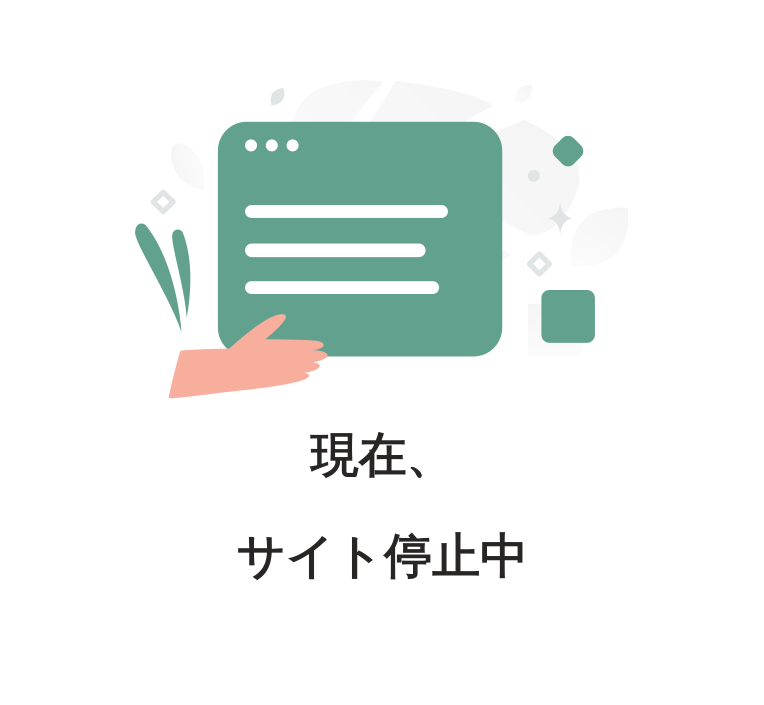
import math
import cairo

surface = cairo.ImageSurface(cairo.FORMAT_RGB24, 764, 705)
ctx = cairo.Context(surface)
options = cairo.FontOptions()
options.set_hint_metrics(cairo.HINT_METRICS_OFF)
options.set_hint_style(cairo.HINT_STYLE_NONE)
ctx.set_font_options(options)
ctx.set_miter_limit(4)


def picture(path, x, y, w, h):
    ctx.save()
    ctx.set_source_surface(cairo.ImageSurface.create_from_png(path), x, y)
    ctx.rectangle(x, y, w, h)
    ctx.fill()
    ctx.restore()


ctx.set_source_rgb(1, 1, 1)
ctx.paint()
picture("img1.png", 135, 80, 493, 319)
ctx.select_font_face("WenQuanYi Zen Hei", cairo.FONT_SLANT_NORMAL, cairo.FONT_WEIGHT_BOLD)
ctx.set_font_size(48)
ctx.set_source_rgb(0.157, 0.145, 0.145)
ctx.move_to(310, 472)
ctx.show_text("現在、")
ctx.move_to(236, 573)
ctx.show_text("サイト停止中")
surface.write_to_png("page.png")
